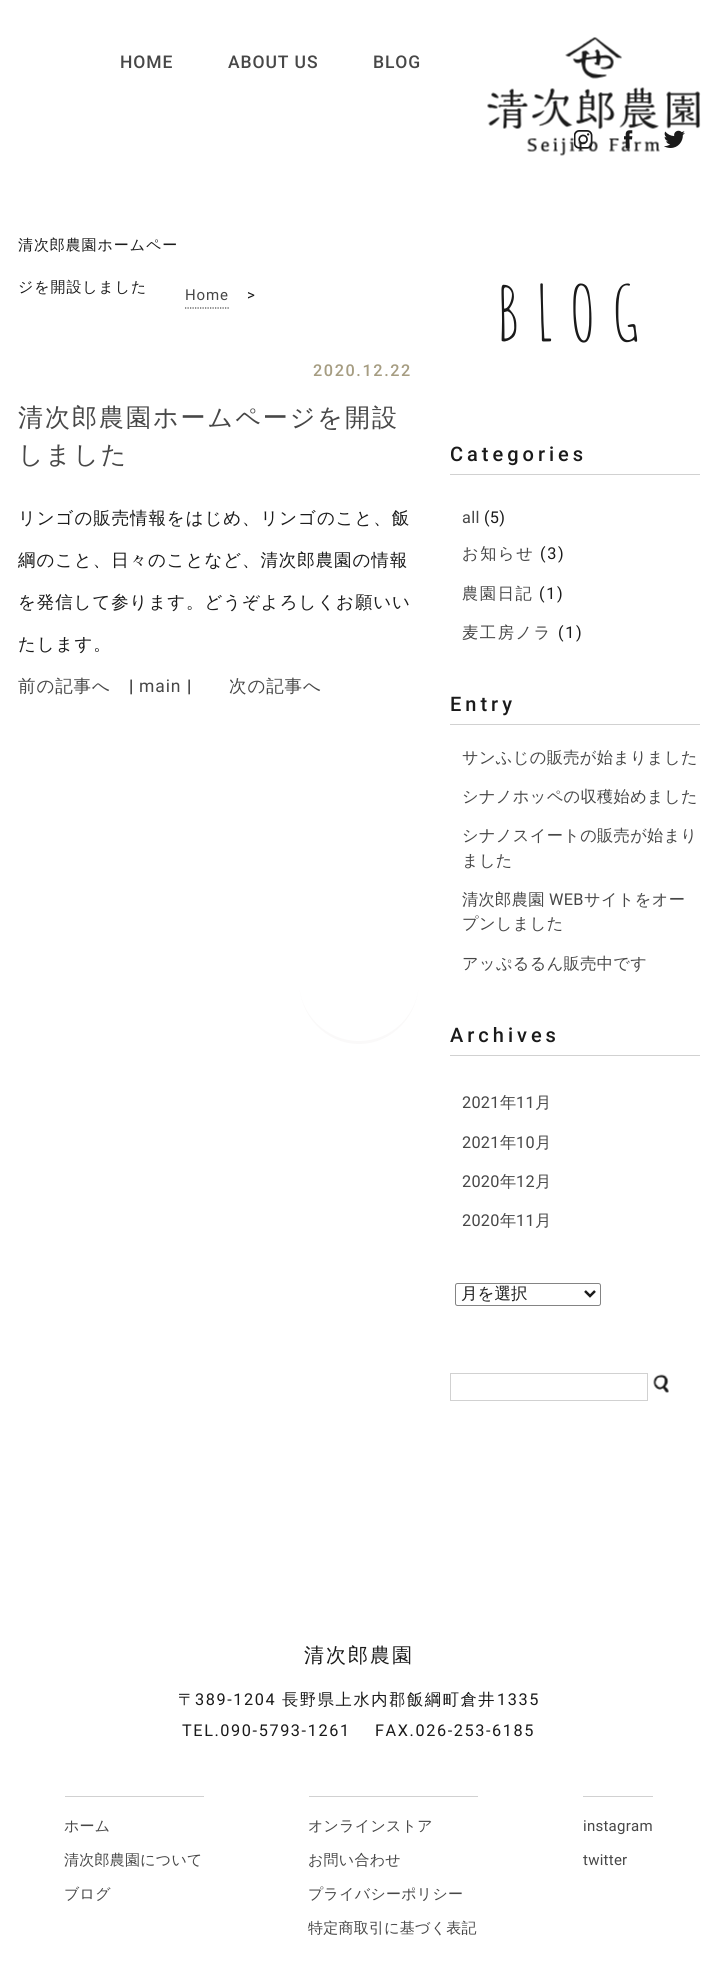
import math
import cairo

surface = cairo.ImageSurface(cairo.FORMAT_RGB24, 717, 1966)
ctx = cairo.Context(surface)
options = cairo.FontOptions()
options.set_hint_metrics(cairo.HINT_METRICS_OFF)
options.set_hint_style(cairo.HINT_STYLE_NONE)
ctx.set_font_options(options)
ctx.set_miter_limit(4)


def spaced_text(x, y, s, letter, word):
    ctx.move_to(x, y)
    for ch in s:
        ctx.show_text(ch)
        ctx.rel_move_to(letter + word * (ch == ' '), 0)


def round_rect(x, y, w, h, r):
    ctx.new_sub_path()
    for i, (u, v) in enumerate([(x + w - r, y + h - r), (x + r, y + h - r), (x + r, y + r), (x + w - r, y + r)]):
        ctx.arc(u, v, r, i * math.pi / 2, (i + 1) * math.pi / 2)
    ctx.close_path()


def picture(path, x, y, w, h):
    ctx.save()
    ctx.set_source_surface(cairo.ImageSurface.create_from_png(path), x, y)
    ctx.rectangle(x, y, w, h)
    ctx.fill()
    ctx.restore()


ctx.set_source_rgb(1, 1, 1)
ctx.paint()
ctx.select_font_face("Roboto Medium")
ctx.set_font_size(17.5)
ctx.set_source_rgb(0.278, 0.278, 0.278)
spaced_text(120, 68, "HOME", 0.9, 0)
spaced_text(228, 68, "ABOUT US", 0.9, 0)
spaced_text(373, 68, "BLOG", 0.9, 0)
picture("img4.png", 487, 37, 214, 119)
picture("img1.png", 574, 130, 19, 19)
picture("img2.png", 624, 130, 9, 19)
picture("img3.png", 664, 130, 21, 18)
ctx.select_font_face("WenQuanYi Zen Hei Medium")
ctx.set_font_size(15)
ctx.set_source_rgb(0.102, 0.102, 0.102)
spaced_text(18, 250, "清次郎農園ホームペー", 0.9, 0)
spaced_text(18, 292, "ジを開設しました", 0.9, 0)
ctx.select_font_face("Roboto")
ctx.set_source_rgb(0.278, 0.278, 0.278)
spaced_text(185, 300, "Home", 0.9, 0)
ctx.new_path()
ctx.move_to(185, 308)
ctx.line_to(229, 308)
ctx.set_line_width(1.2)
ctx.set_dash([1.25, 1.25])
ctx.stroke()
ctx.set_source_rgb(0.102, 0.102, 0.102)
spaced_text(247, 300, ">", 0.9, 0)
ctx.select_font_face("Roboto Medium")
ctx.set_font_size(16.25)
ctx.set_source_rgb(0.651, 0.616, 0.51)
spaced_text(313, 376, "2020.12.22", 1.6, 0)
ctx.select_font_face("WenQuanYi Zen Hei Medium")
ctx.set_font_size(25)
ctx.set_source_rgb(0.278, 0.278, 0.278)
spaced_text(18, 426, "清次郎農園ホームページを開設", 2, 0)
spaced_text(18, 463, "しました", 2, 0)
ctx.set_font_size(17.5)
ctx.set_source_rgb(0.102, 0.102, 0.102)
spaced_text(18, 524, "リンゴの販売情報をはじめ、リンゴのこと、飯", 0.9, 0)
spaced_text(18, 566, "綱のこと、日々のことなど、清次郎農園の情報", 0.9, 0)
spaced_text(18, 608, "を発信して参ります。どうぞよろしくお願いい", 0.9, 0)
spaced_text(18, 650, "たします。", 0.9, 0)
ctx.set_source_rgb(0.278, 0.278, 0.278)
spaced_text(18, 692, "前の記事へ", 0.9, 0)
ctx.select_font_face("Roboto")
ctx.set_source_rgb(0.102, 0.102, 0.102)
spaced_text(129, 692, "|", 0.9, 0)
ctx.set_source_rgb(0.278, 0.278, 0.278)
spaced_text(139, 692, "main", 0.9, 0)
ctx.set_source_rgb(0.102, 0.102, 0.102)
spaced_text(187, 692, "|", 0.9, 0)
ctx.select_font_face("WenQuanYi Zen Hei Medium")
ctx.set_source_rgb(0.278, 0.278, 0.278)
spaced_text(229, 692, "次の記事へ", 0.9, 0)
ctx.select_font_face("Amatic SC")
ctx.set_font_size(75)
ctx.set_source_rgb(0.102, 0.102, 0.102)
spaced_text(496, 341, "BLOG", 15, 0)
ctx.set_source_rgb(0.82, 0.82, 0.82)
ctx.rectangle(450, 474, 250, 1)
ctx.fill()
ctx.select_font_face("Roboto Medium")
ctx.set_font_size(20)
ctx.set_source_rgb(0.102, 0.102, 0.102)
spaced_text(450, 461, "Categories", 4, 0)
ctx.select_font_face("Roboto")
ctx.set_font_size(16.25)
ctx.set_source_rgb(0.278, 0.278, 0.278)
spaced_text(462, 523, "all", 0.3, 0)
ctx.set_source_rgb(0.102, 0.102, 0.102)
spaced_text(484, 523, "(5)", 0.3, 0)
ctx.select_font_face("WenQuanYi Zen Hei Medium")
ctx.set_source_rgb(0.278, 0.278, 0.278)
spaced_text(462, 559, "お知らせ", 1.6, 0)
ctx.select_font_face("Roboto")
ctx.set_source_rgb(0.102, 0.102, 0.102)
spaced_text(540, 559, "(3)", 1.6, 0)
ctx.select_font_face("WenQuanYi Zen Hei Medium")
ctx.set_source_rgb(0.278, 0.278, 0.278)
spaced_text(462, 599, "農園日記", 1.6, 0)
ctx.select_font_face("Roboto")
ctx.set_source_rgb(0.102, 0.102, 0.102)
spaced_text(539, 599, "(1)", 1.6, 0)
ctx.select_font_face("WenQuanYi Zen Hei Medium")
ctx.set_source_rgb(0.278, 0.278, 0.278)
spaced_text(462, 638, "麦工房ノラ", 1.6, 0)
ctx.select_font_face("Roboto")
ctx.set_source_rgb(0.102, 0.102, 0.102)
spaced_text(558, 638, "(1)", 1.6, 0)
ctx.set_source_rgb(0.82, 0.82, 0.82)
ctx.rectangle(450, 724, 250, 1)
ctx.fill()
ctx.select_font_face("Roboto Medium")
ctx.set_font_size(20)
ctx.set_source_rgb(0.102, 0.102, 0.102)
spaced_text(450, 711, "Entry", 4, 0)
ctx.select_font_face("WenQuanYi Zen Hei Medium")
ctx.set_font_size(16.25)
ctx.set_source_rgb(0.278, 0.278, 0.278)
spaced_text(462, 763, "サンふじの販売が始まりました", 0.3, 0)
spaced_text(462, 802, "シナノホッペの収穫始めました", 0.3, 0)
spaced_text(462, 841, "シナノスイートの販売が始まり", 0.3, 0)
spaced_text(462, 866, "ました", 0.3, 0)
spaced_text(462, 905, "清次郎農園", 0.3, 0)
ctx.select_font_face("Roboto")
spaced_text(549, 905, "WEB", 0.3, 0)
ctx.select_font_face("WenQuanYi Zen Hei Medium")
spaced_text(584, 905, "サイトをオー", 0.3, 0)
spaced_text(462, 929, "プンしました", 0.3, 0)
spaced_text(462, 969, "アッぷるるん販売中です", 0.3, 0)
ctx.set_source_rgb(0.82, 0.82, 0.82)
ctx.rectangle(450, 1055, 250, 1)
ctx.fill()
ctx.select_font_face("Roboto Medium")
ctx.set_font_size(20)
ctx.set_source_rgb(0.102, 0.102, 0.102)
spaced_text(450, 1042, "Archives", 4, 0)
ctx.select_font_face("Roboto")
ctx.set_font_size(16.25)
ctx.set_source_rgb(0.278, 0.278, 0.278)
spaced_text(462, 1108, "2021", 0.3, 0)
ctx.select_font_face("WenQuanYi Zen Hei Medium")
spaced_text(500, 1108, "年", 0.3, 0)
ctx.select_font_face("Roboto")
spaced_text(516, 1108, "11", 0.3, 0)
ctx.select_font_face("WenQuanYi Zen Hei Medium")
spaced_text(535, 1108, "月", 0.3, 0)
ctx.select_font_face("Roboto")
spaced_text(462, 1148, "2021", 0.3, 0)
ctx.select_font_face("WenQuanYi Zen Hei Medium")
spaced_text(500, 1148, "年", 0.3, 0)
ctx.select_font_face("Roboto")
spaced_text(516, 1148, "10", 0.3, 0)
ctx.select_font_face("WenQuanYi Zen Hei Medium")
spaced_text(535, 1148, "月", 0.3, 0)
ctx.select_font_face("Roboto")
spaced_text(462, 1187, "2020", 0.3, 0)
ctx.select_font_face("WenQuanYi Zen Hei Medium")
spaced_text(500, 1187, "年", 0.3, 0)
ctx.select_font_face("Roboto")
spaced_text(516, 1187, "12", 0.3, 0)
ctx.select_font_face("WenQuanYi Zen Hei Medium")
spaced_text(535, 1187, "月", 0.3, 0)
ctx.select_font_face("Roboto")
spaced_text(462, 1226, "2020", 0.3, 0)
ctx.select_font_face("WenQuanYi Zen Hei Medium")
spaced_text(500, 1226, "年", 0.3, 0)
ctx.select_font_face("Roboto")
spaced_text(516, 1226, "11", 0.3, 0)
ctx.select_font_face("WenQuanYi Zen Hei Medium")
spaced_text(535, 1226, "月", 0.3, 0)
round_rect(455.5, 1283.5, 145, 22, 2)
ctx.set_source_rgb(0.518, 0.518, 0.518)
ctx.set_line_width(1)
ctx.set_dash([])
ctx.stroke()
ctx.new_path()
ctx.move_to(585, 1291)
ctx.line_to(590, 1296)
ctx.line_to(595, 1291)
ctx.set_source_rgb(0.102, 0.102, 0.102)
ctx.set_line_width(2.5)
ctx.stroke()
ctx.set_font_size(16.5)
ctx.move_to(461, 1299)
ctx.show_text("月を選択")
ctx.rectangle(450.5, 1373.5, 197, 27)
ctx.set_source_rgb(0.82, 0.82, 0.82)
ctx.set_line_width(1)
ctx.stroke()
picture("img5.png", 653, 1374, 16, 19)
ctx.set_font_size(20)
ctx.set_source_rgb(0.102, 0.102, 0.102)
spaced_text(304, 1662, "清次郎農園", 2, 0)
ctx.set_font_size(16.25)
spaced_text(178, 1705, "〒", 1.6, 0)
ctx.select_font_face("Roboto")
spaced_text(195, 1705, "389-1204", 1.6, 0)
ctx.select_font_face("WenQuanYi Zen Hei Medium")
spaced_text(282, 1705, "長野県上水内郡飯綱町倉井", 1.6, 0)
ctx.select_font_face("Roboto")
spaced_text(497, 1705, "1335", 1.6, 0)
spaced_text(182, 1736, "TEL.090-5793-1261", 1.6, 0)
spaced_text(375, 1736, "FAX.026-253-6185", 1.6, 0)
ctx.set_source_rgb(0.82, 0.82, 0.82)
ctx.rectangle(65, 1796, 139, 1)
ctx.fill()
ctx.select_font_face("WenQuanYi Zen Hei Medium")
ctx.set_font_size(15)
ctx.set_source_rgb(0.278, 0.278, 0.278)
spaced_text(64, 1831, "ホーム", 0.25, 0)
spaced_text(64, 1865, "清次郎農園について", 0.25, 0)
spaced_text(64, 1899, "ブログ", 0.25, 0)
ctx.set_source_rgb(0.82, 0.82, 0.82)
ctx.rectangle(309, 1796, 169, 1)
ctx.fill()
ctx.set_source_rgb(0.278, 0.278, 0.278)
spaced_text(308, 1831, "オンラインストア", 0.25, 0)
spaced_text(308, 1865, "お問い合わせ", 0.25, 0)
spaced_text(308, 1899, "プライバシーポリシー", 0.25, 0)
spaced_text(308, 1933, "特定商取引に基づく表記", 0.25, 0)
ctx.set_source_rgb(0.82, 0.82, 0.82)
ctx.rectangle(583, 1796, 70, 1)
ctx.fill()
ctx.select_font_face("Roboto")
ctx.set_source_rgb(0.278, 0.278, 0.278)
spaced_text(583, 1831, "instagram", 0.25, 0)
spaced_text(583, 1865, "twitter", 0.25, 0)
ctx.set_source_rgb(0.98, 0.976, 0.973)
ctx.new_path()
ctx.move_to(299, 981)
ctx.curve_to(299, 1014, 326, 1041, 359, 1041)
ctx.curve_to(392, 1041, 419, 1014, 419, 981)
ctx.curve_to(419, 1016, 392, 1044, 359, 1044)
ctx.curve_to(326, 1044, 299, 1016, 299, 981)
ctx.fill()
surface.write_to_png("page.png")
